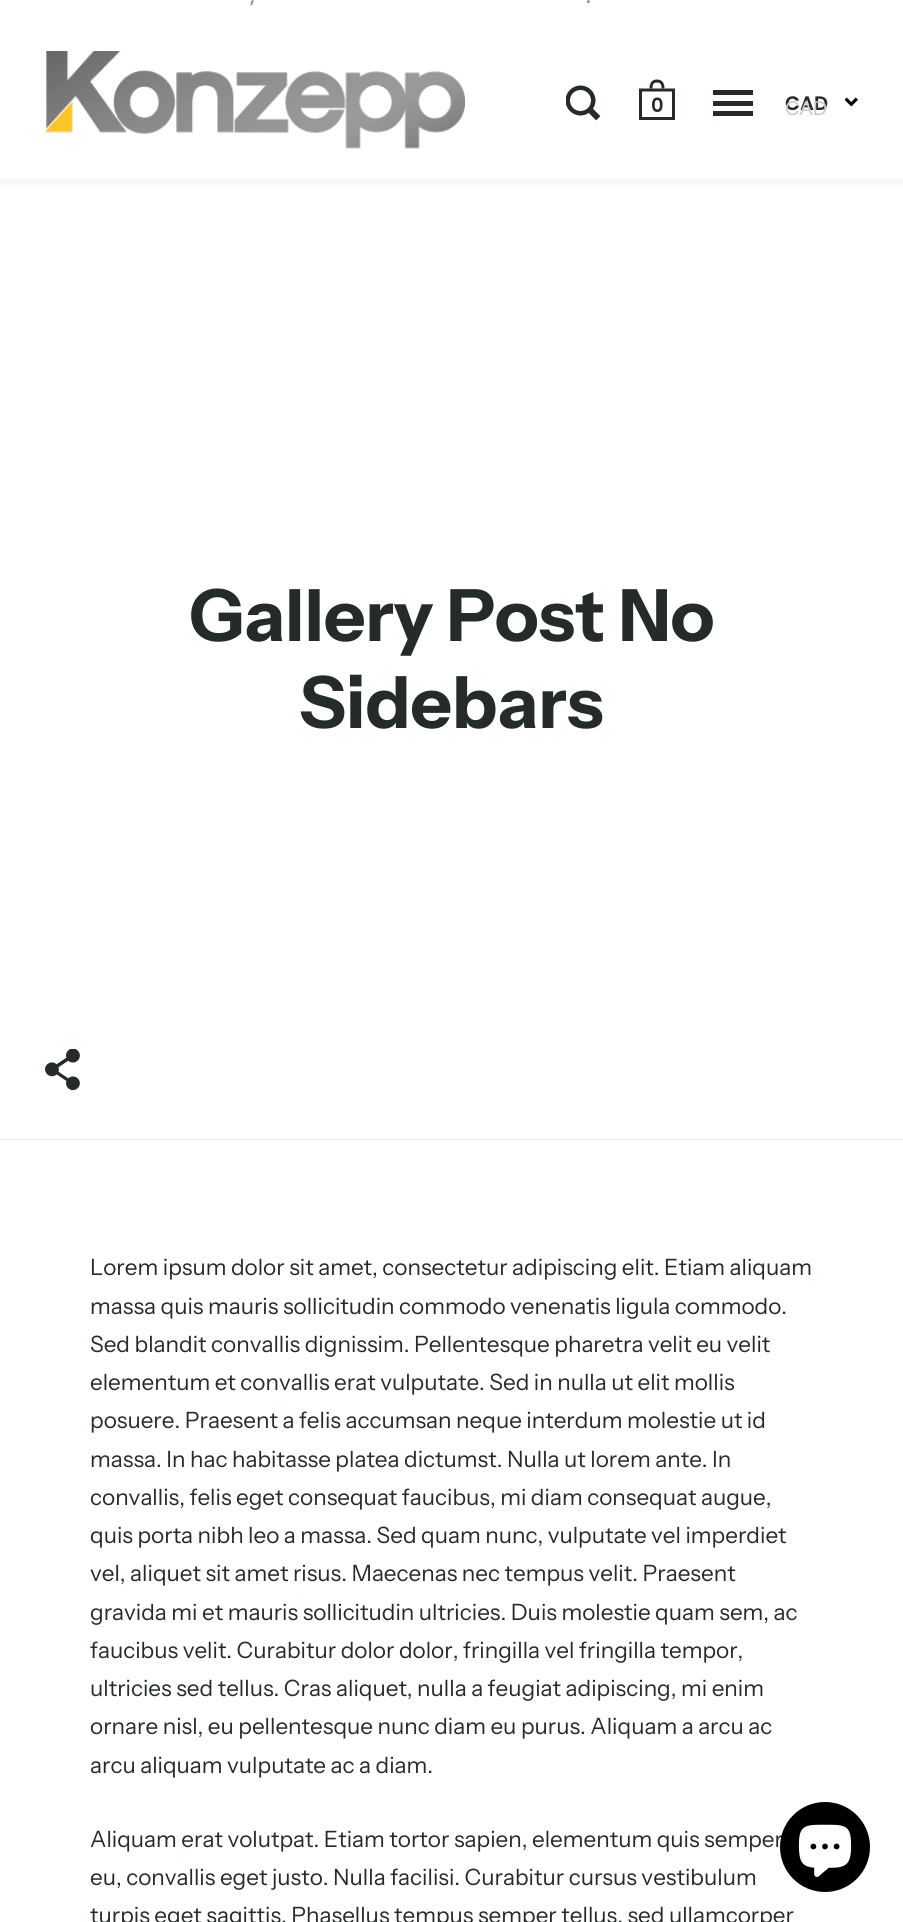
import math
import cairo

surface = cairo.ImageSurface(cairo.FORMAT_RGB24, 903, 1922)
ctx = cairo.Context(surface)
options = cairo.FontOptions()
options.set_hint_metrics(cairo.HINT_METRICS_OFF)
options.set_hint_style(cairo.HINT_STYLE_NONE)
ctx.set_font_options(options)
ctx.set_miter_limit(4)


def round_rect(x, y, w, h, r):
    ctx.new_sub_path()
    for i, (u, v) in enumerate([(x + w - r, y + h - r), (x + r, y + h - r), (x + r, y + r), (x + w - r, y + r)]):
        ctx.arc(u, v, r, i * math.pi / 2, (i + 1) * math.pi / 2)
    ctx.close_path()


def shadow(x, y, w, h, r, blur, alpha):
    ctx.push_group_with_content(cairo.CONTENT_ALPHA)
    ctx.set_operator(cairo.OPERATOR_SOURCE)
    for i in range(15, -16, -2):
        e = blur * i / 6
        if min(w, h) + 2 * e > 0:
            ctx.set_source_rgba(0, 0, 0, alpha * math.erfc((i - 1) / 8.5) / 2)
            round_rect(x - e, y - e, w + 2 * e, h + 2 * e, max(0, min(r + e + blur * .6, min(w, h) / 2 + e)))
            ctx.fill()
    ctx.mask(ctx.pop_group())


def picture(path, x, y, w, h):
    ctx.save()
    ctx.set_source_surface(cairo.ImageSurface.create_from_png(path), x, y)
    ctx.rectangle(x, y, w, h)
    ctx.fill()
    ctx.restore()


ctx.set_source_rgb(1, 1, 1)
ctx.paint()
ctx.set_source_rgb(0, 0, 0)
shadow(0, 21, 903, 158, 0, 7.5, 0.08)
ctx.set_source_rgb(1, 1, 1)
ctx.rectangle(0, 12, 903, 167)
ctx.fill()
ctx.select_font_face("Poppins SemiBold")
ctx.set_font_size(18)
ctx.set_source_rgb(0.576, 0.576, 0.576)
ctx.move_to(250, 3)
ctx.show_text(",")
ctx.move_to(586, 3)
ctx.show_text(".")
picture("img1.png", 45, 51, 420, 98)
picture("img2.png", 566, 85, 35, 36)
picture("img3.png", 639, 79, 36, 41)
ctx.set_font_size(19.5)
ctx.set_source_rgb(0.145, 0.165, 0.169)
ctx.move_to(651, 112)
ctx.show_text("0")
ctx.rectangle(713, 101, 40, 5)
ctx.fill()
ctx.rectangle(713, 90, 40, 5)
ctx.fill()
ctx.rectangle(713, 111, 40, 5)
ctx.fill()
ctx.move_to(785, 110)
ctx.show_text("CAD")
picture("img4.png", 845, 97, 13, 10)
ctx.select_font_face("Liberation Sans")
ctx.set_font_size(20)
ctx.set_source_rgb(0.784, 0.788, 0.788)
ctx.move_to(785, 115)
ctx.show_text("CAD")
ctx.set_source_rgb(0.929, 0.929, 0.929)
ctx.rectangle(0, 1139, 903, 1)
ctx.fill()
ctx.select_font_face("Instrument Sans", cairo.FONT_SLANT_NORMAL, cairo.FONT_WEIGHT_BOLD)
ctx.set_font_size(72)
ctx.set_source_rgb(0.145, 0.165, 0.169)
ctx.move_to(189, 641)
ctx.show_text("Gallery Post No")
ctx.move_to(299, 728)
ctx.show_text("Sidebars")
picture("img5.png", 45, 1049, 35, 42)
ctx.select_font_face("Instrument Sans")
ctx.set_font_size(22.5)
ctx.move_to(90, 1275)
ctx.show_text("Lorem ipsum dolor sit amet, consectetur adipiscing elit. Etiam aliquam")
ctx.move_to(90, 1314)
ctx.show_text("massa quis mauris sollicitudin commodo venenatis ligula commodo.")
ctx.move_to(90, 1352)
ctx.show_text("Sed blandit convallis dignissim. Pellentesque pharetra velit eu velit")
ctx.move_to(90, 1390)
ctx.show_text("elementum et convallis erat vulputate. Sed in nulla ut elit mollis")
ctx.move_to(90, 1428)
ctx.show_text("posuere. Praesent a felis accumsan neque interdum molestie ut id")
ctx.move_to(90, 1467)
ctx.show_text("massa. In hac habitasse platea dictumst. Nulla ut lorem ante. In")
ctx.move_to(90, 1505)
ctx.show_text("convallis, felis eget consequat faucibus, mi diam consequat augue,")
ctx.move_to(90, 1543)
ctx.show_text("quis porta nibh leo a massa. Sed quam nunc, vulputate vel imperdiet")
ctx.move_to(90, 1581)
ctx.show_text("vel, aliquet sit amet risus. Maecenas nec tempus velit. Praesent")
ctx.move_to(90, 1620)
ctx.show_text("gravida mi et mauris sollicitudin ultricies. Duis molestie quam sem, ac")
ctx.move_to(90, 1658)
ctx.show_text("faucibus velit. Curabitur dolor dolor, fringilla vel fringilla tempor,")
ctx.move_to(90, 1696)
ctx.show_text("ultricies sed tellus. Cras aliquet, nulla a feugiat adipiscing, mi enim")
ctx.move_to(90, 1734)
ctx.show_text("ornare nisl, eu pellentesque nunc diam eu purus. Aliquam a arcu ac")
ctx.move_to(90, 1773)
ctx.show_text("arcu aliquam vulputate ac a diam.")
ctx.move_to(90, 1847)
ctx.show_text("Aliquam erat volutpat. Etiam tortor sapien, elementum quis semper")
ctx.move_to(90, 1885)
ctx.show_text("eu, convallis eget justo. Nulla facilisi. Curabitur cursus vestibulum")
ctx.move_to(90, 1923)
ctx.show_text("turpis eget sagittis. Phasellus tempus semper tellus, sed ullamcorper")
ctx.set_source_rgb(0, 0, 0)
ctx.new_path()
ctx.arc(825, 1847, 45, 0, 2 * math.pi)
ctx.fill()
picture("img6.png", 798, 1824, 54, 53)
surface.write_to_png("page.png")
